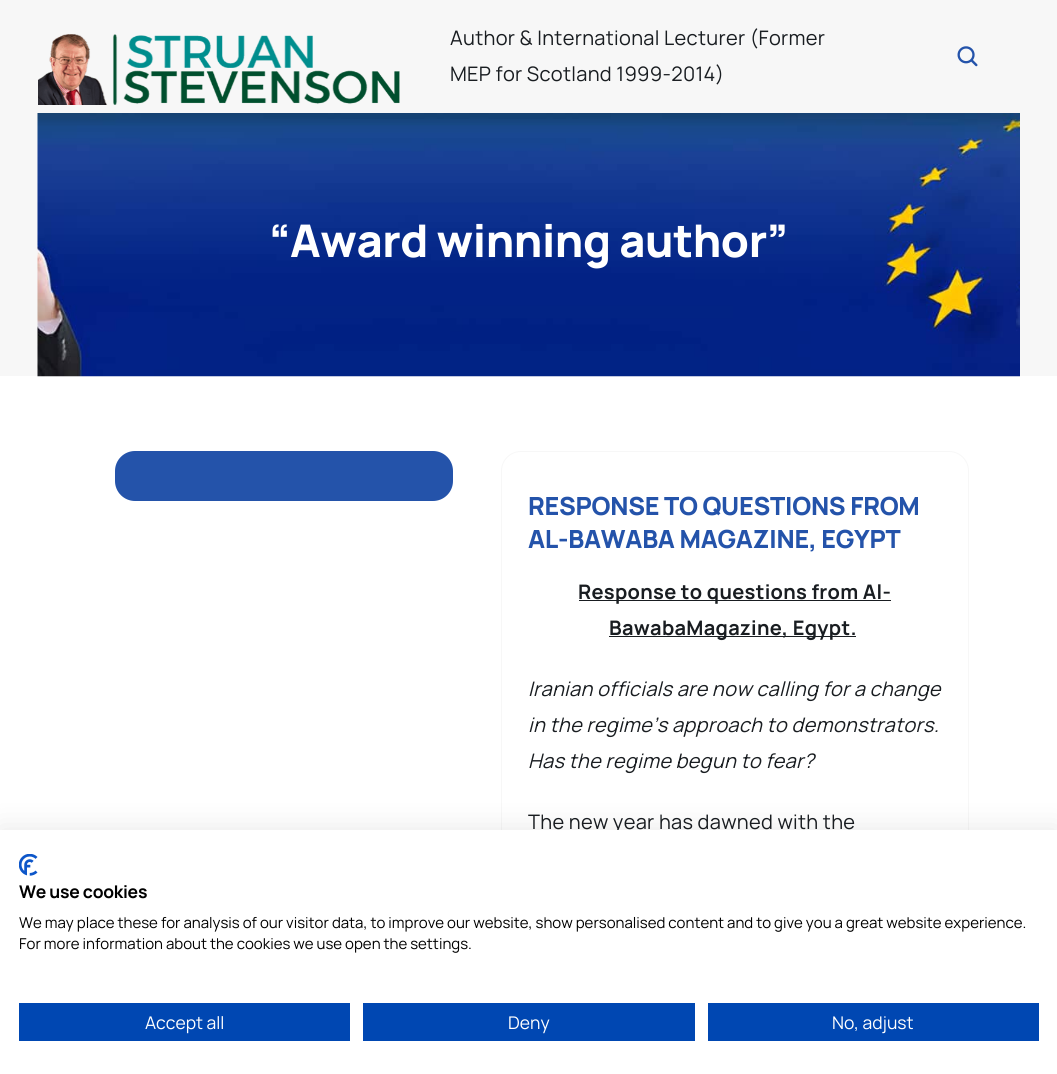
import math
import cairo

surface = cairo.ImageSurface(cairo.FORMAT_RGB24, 1057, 1074)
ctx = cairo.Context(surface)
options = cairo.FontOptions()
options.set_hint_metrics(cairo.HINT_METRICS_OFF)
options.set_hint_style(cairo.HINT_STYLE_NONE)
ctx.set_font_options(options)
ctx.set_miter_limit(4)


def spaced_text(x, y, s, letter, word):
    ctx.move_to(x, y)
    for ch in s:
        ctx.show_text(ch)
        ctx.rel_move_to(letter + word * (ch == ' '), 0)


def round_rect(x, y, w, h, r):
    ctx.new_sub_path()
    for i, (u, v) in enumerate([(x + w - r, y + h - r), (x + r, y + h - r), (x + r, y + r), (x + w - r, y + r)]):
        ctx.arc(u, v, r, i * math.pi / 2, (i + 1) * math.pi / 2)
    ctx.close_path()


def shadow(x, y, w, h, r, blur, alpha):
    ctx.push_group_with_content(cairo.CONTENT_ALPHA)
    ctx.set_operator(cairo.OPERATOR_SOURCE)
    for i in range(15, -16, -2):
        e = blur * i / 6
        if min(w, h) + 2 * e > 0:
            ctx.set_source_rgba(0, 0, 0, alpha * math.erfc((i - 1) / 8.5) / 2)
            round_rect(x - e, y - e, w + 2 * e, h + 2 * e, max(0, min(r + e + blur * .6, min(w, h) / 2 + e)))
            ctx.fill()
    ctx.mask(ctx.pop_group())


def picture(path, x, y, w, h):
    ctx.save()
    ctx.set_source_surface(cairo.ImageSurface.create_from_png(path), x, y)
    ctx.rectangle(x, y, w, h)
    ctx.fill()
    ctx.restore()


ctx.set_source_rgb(1, 1, 1)
ctx.paint()
ctx.set_source_rgb(0.965, 0.965, 0.965)
ctx.rectangle(0, 0, 1057, 376)
ctx.fill()
picture("img1.png", 38, 34, 362, 71)
ctx.select_font_face("Manrope")
ctx.set_font_size(20)
ctx.set_source_rgb(0.098, 0.114, 0.129)
spaced_text(450, 45, "Author & International Lecturer (Former", 0.3, 0)
spaced_text(450, 81, "MEP for Scotland 1999-2014)", 0.3, 0)
picture("img2.png", 957, 46, 21, 21)
picture("img3.png", 37, 113, 983, 264)
ctx.select_font_face("Manrope ExtraBold")
ctx.set_font_size(45)
ctx.set_source_rgb(1, 1, 1)
spaced_text(269, 257, "“Award winning author”", -0.45, 0)
ctx.set_source_rgb(0.141, 0.325, 0.667)
round_rect(115, 451, 338, 50, 20)
ctx.fill()
round_rect(501.5, 451.5, 467, 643, 19.5)
ctx.set_source_rgb(0.965, 0.965, 0.965)
ctx.set_line_width(1)
ctx.stroke()
ctx.set_font_size(25)
ctx.set_source_rgb(0.141, 0.325, 0.667)
spaced_text(528, 515, "RESPONSE TO QUESTIONS FROM", -0.25, 0)
spaced_text(528, 548, "AL-BAWABA MAGAZINE, EGYPT", -0.25, 0)
ctx.set_source_rgb(0.098, 0.114, 0.129)
ctx.rectangle(579, 600, 312, 1)
ctx.fill()
ctx.select_font_face("Manrope", cairo.FONT_SLANT_NORMAL, cairo.FONT_WEIGHT_BOLD)
ctx.set_font_size(20)
spaced_text(578, 599, "Response to questions from Al-", 0.3, 0)
ctx.rectangle(609, 636, 247, 1)
ctx.fill()
spaced_text(609, 635, "BawabaMagazine, Egypt.", 0.3, 0)
ctx.select_font_face("Manrope", cairo.FONT_SLANT_ITALIC)
spaced_text(528, 696, "Iranian officials are now calling for a change", 0.3, 0)
spaced_text(528, 732, "in the regime’s approach to demonstrators.", 0.3, 0)
spaced_text(528, 768, "Has the regime begun to fear?", 0.3, 0)
ctx.select_font_face("Manrope")
spaced_text(528, 829, "The new year has dawned with the", 0.3, 0)
ctx.set_source_rgb(0, 0, 0)
shadow(0, 830, 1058, 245, 0, 15, 0.1)
ctx.set_source_rgb(1, 1, 1)
ctx.rectangle(0, 830, 1057, 244)
ctx.fill()
picture("img4.png", 19, 854, 19, 22)
ctx.select_font_face("Manrope", cairo.FONT_SLANT_NORMAL, cairo.FONT_WEIGHT_BOLD)
ctx.set_font_size(17.5)
ctx.set_source_rgb(0, 0, 0)
spaced_text(19, 898, "We use cookies", -0.25, 0)
ctx.select_font_face("Manrope")
ctx.set_font_size(15)
ctx.move_to(19, 928)
ctx.show_text("We may place these for analysis of our visitor data, to improve our website, show personalised content and to give you a great website experience.")
ctx.move_to(19, 949)
ctx.show_text("For more information about the cookies we use open the settings.")
ctx.set_source_rgb(0, 0.278, 0.698)
ctx.rectangle(19, 1003, 331, 38)
ctx.fill()
ctx.set_font_size(17.5)
ctx.set_source_rgb(1, 1, 1)
ctx.move_to(145, 1029)
ctx.show_text("Accept all")
ctx.set_source_rgb(0, 0.278, 0.698)
ctx.rectangle(363, 1003, 332, 38)
ctx.fill()
ctx.set_source_rgb(1, 1, 1)
ctx.move_to(508, 1029)
ctx.show_text("Deny")
ctx.set_source_rgb(0, 0.278, 0.698)
ctx.rectangle(708, 1003, 331, 38)
ctx.fill()
ctx.set_source_rgb(1, 1, 1)
ctx.move_to(832, 1029)
ctx.show_text("No, adjust")
surface.write_to_png("page.png")
